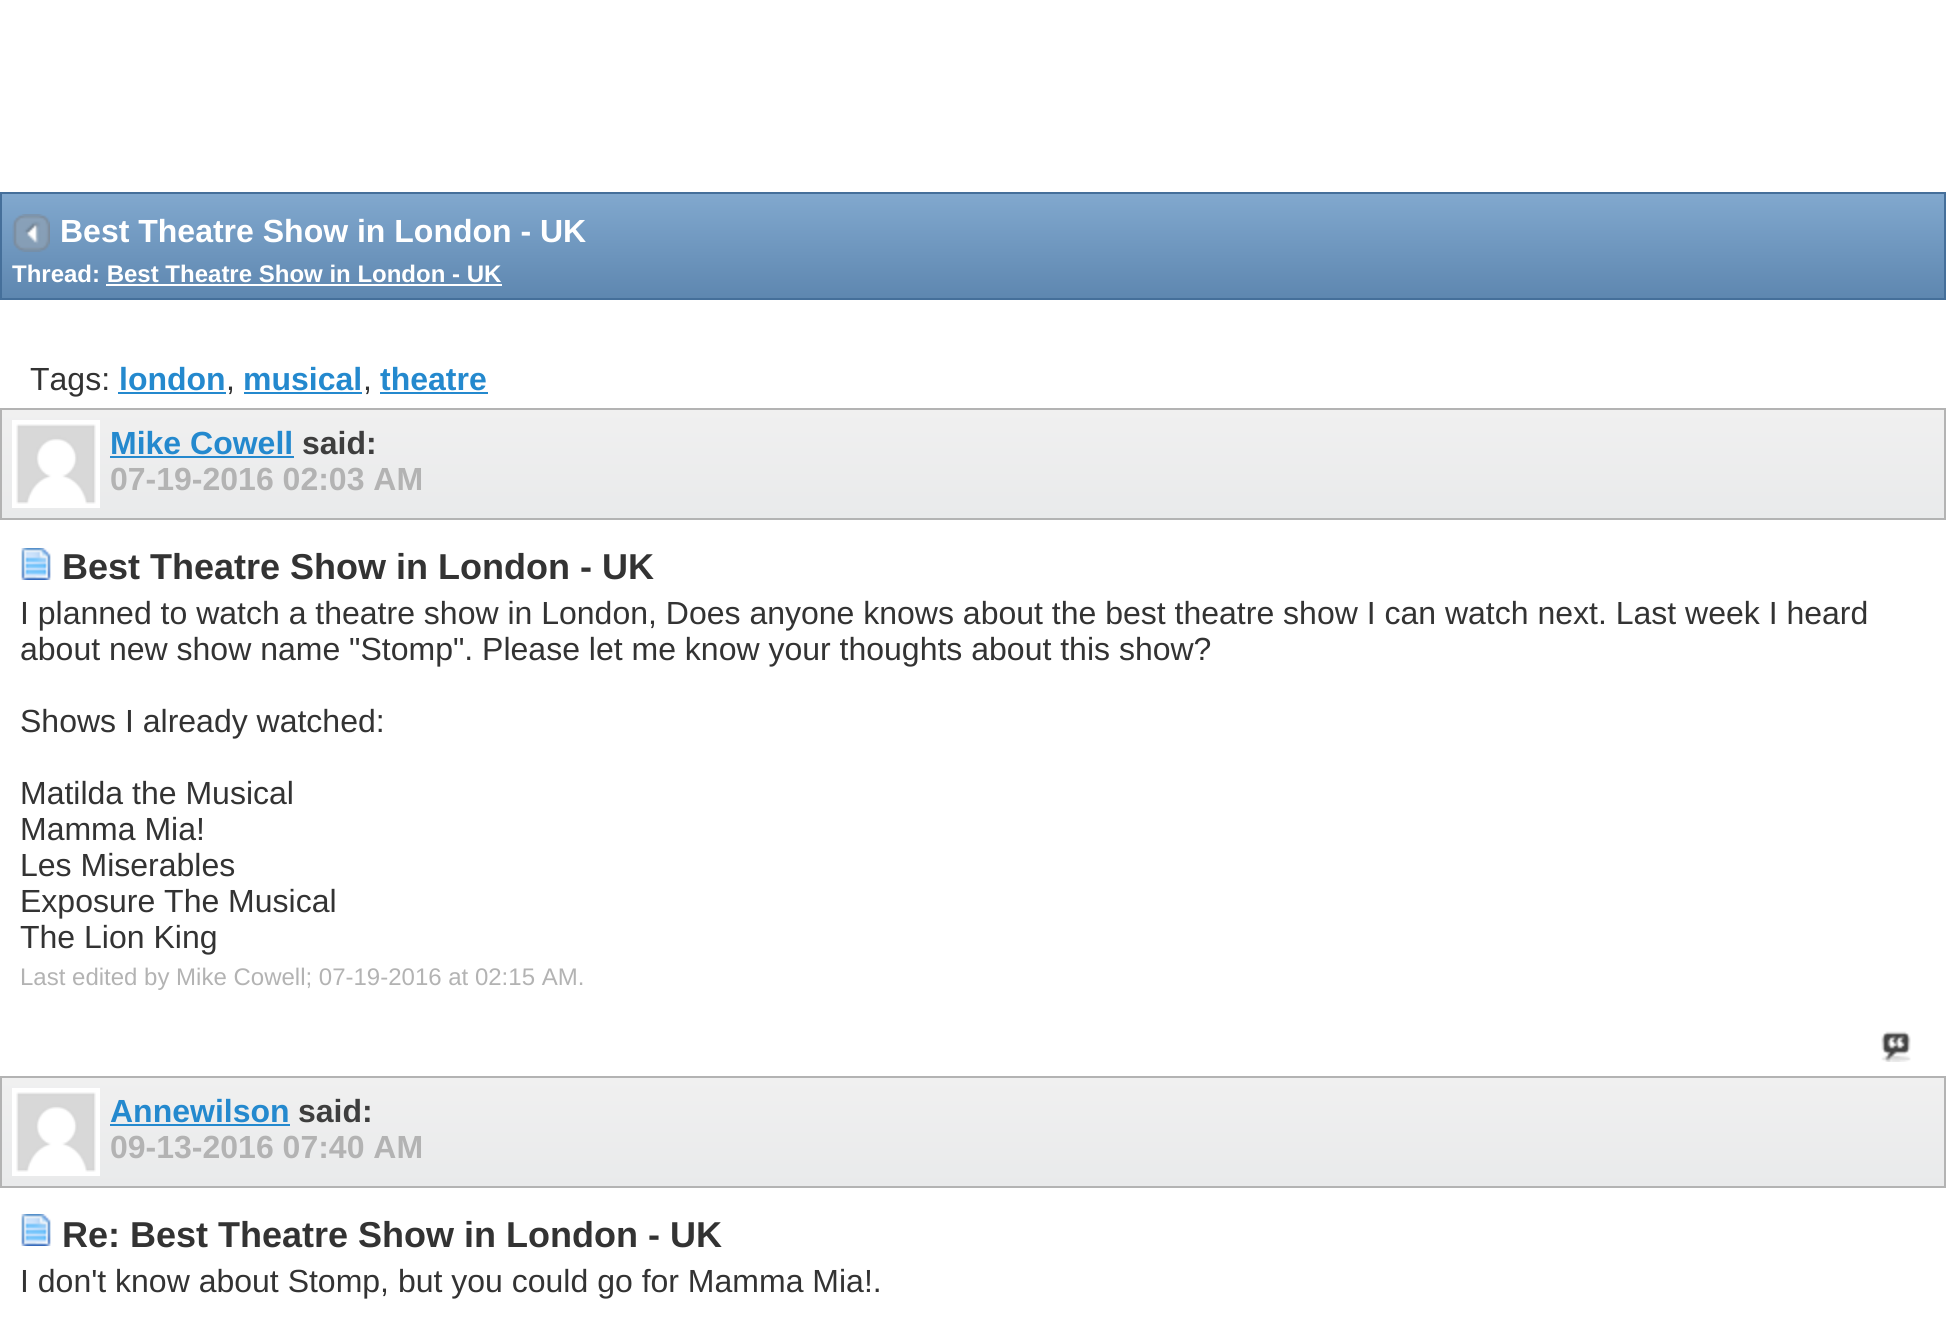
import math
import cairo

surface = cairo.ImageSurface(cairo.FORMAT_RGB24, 1946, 1338)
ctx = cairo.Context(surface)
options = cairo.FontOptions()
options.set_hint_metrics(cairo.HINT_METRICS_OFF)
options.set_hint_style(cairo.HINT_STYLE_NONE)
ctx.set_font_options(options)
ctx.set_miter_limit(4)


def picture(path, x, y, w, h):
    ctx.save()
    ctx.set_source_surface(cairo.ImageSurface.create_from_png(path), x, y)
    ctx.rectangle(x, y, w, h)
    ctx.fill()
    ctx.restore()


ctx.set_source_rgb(1, 1, 1)
ctx.paint()
gradient = cairo.LinearGradient(973, 194, 973, 298)
gradient.add_color_stop_rgba(0, 0.506, 0.659, 0.808, 1)
gradient.add_color_stop_rgba(1, 0.369, 0.529, 0.69, 1)
ctx.set_source(gradient)
ctx.rectangle(2, 194, 1942, 104)
ctx.fill()
ctx.rectangle(1, 193, 1944, 106)
ctx.set_source_rgb(0.271, 0.435, 0.604)
ctx.stroke()
picture("img1.png", 12, 214, 38, 38)
ctx.select_font_face("Liberation Sans", cairo.FONT_SLANT_NORMAL, cairo.FONT_WEIGHT_BOLD)
ctx.set_font_size(32)
ctx.set_source_rgb(1, 1, 1)
ctx.move_to(60, 242)
ctx.show_text("Best Theatre Show in London - UK")
ctx.set_font_size(24)
ctx.move_to(12, 282)
ctx.show_text("Thread: Best Theatre Show in London - UK")
ctx.rectangle(106, 284, 396, 2)
ctx.fill()
ctx.select_font_face("Liberation Sans")
ctx.set_font_size(32)
ctx.set_source_rgb(0.2, 0.2, 0.2)
ctx.move_to(30, 390)
ctx.show_text("Tags:")
ctx.select_font_face("Liberation Sans", cairo.FONT_SLANT_NORMAL, cairo.FONT_WEIGHT_BOLD)
ctx.set_source_rgb(0.141, 0.537, 0.808)
ctx.move_to(119, 390)
ctx.show_text("london")
ctx.rectangle(118, 392, 108, 2)
ctx.fill()
ctx.select_font_face("Liberation Sans")
ctx.set_source_rgb(0.2, 0.2, 0.2)
ctx.move_to(226, 390)
ctx.show_text(",")
ctx.select_font_face("Liberation Sans", cairo.FONT_SLANT_NORMAL, cairo.FONT_WEIGHT_BOLD)
ctx.set_source_rgb(0.141, 0.537, 0.808)
ctx.move_to(243, 390)
ctx.show_text("musical")
ctx.rectangle(244, 392, 118, 2)
ctx.fill()
ctx.select_font_face("Liberation Sans")
ctx.set_source_rgb(0.2, 0.2, 0.2)
ctx.move_to(363, 390)
ctx.show_text(",")
ctx.select_font_face("Liberation Sans", cairo.FONT_SLANT_NORMAL, cairo.FONT_WEIGHT_BOLD)
ctx.set_source_rgb(0.141, 0.537, 0.808)
ctx.move_to(380, 390)
ctx.show_text("theatre")
ctx.rectangle(380, 392, 108, 2)
ctx.fill()
gradient = cairo.LinearGradient(973, 410, 973, 518)
gradient.add_color_stop_rgba(0, 0.941, 0.941, 0.941, 1)
gradient.add_color_stop_rgba(1, 0.914, 0.918, 0.922, 1)
ctx.set_source(gradient)
ctx.rectangle(2, 410, 1942, 108)
ctx.fill()
ctx.rectangle(1, 409, 1944, 110)
ctx.set_source_rgb(0.702, 0.702, 0.702)
ctx.stroke()
picture("img2.png", 12, 420, 88, 88)
ctx.set_source_rgb(0.141, 0.537, 0.808)
ctx.move_to(110, 454)
ctx.show_text("Mike Cowell")
ctx.rectangle(110, 456, 184, 2)
ctx.fill()
ctx.set_source_rgb(0.243, 0.243, 0.243)
ctx.move_to(302, 454)
ctx.show_text("said:")
ctx.set_source_rgb(0.702, 0.702, 0.702)
ctx.move_to(110, 490)
ctx.show_text("07-19-2016 02:03 AM")
picture("img3.png", 21, 548, 30, 32)
ctx.set_font_size(36)
ctx.set_source_rgb(0.2, 0.2, 0.2)
ctx.move_to(62, 579)
ctx.show_text("Best Theatre Show in London - UK")
ctx.select_font_face("Liberation Sans")
ctx.set_font_size(32)
ctx.move_to(20, 624)
ctx.show_text("I planned to watch a theatre show in London, Does anyone knows about the best theatre show I can watch next. Last week I heard")
ctx.move_to(20, 660)
ctx.show_text("about new show name \"Stomp\". Please let me know your thoughts about this show?")
ctx.move_to(20, 732)
ctx.show_text("Shows I already watched:")
ctx.move_to(20, 804)
ctx.show_text("Matilda the Musical")
ctx.move_to(20, 840)
ctx.show_text("Mamma Mia!")
ctx.move_to(20, 876)
ctx.show_text("Les Miserables")
ctx.move_to(20, 912)
ctx.show_text("Exposure The Musical")
ctx.move_to(20, 948)
ctx.show_text("The Lion King")
ctx.set_font_size(24)
ctx.set_source_rgb(0.702, 0.702, 0.702)
ctx.move_to(20, 985)
ctx.show_text("Last edited by Mike Cowell; 07-19-2016 at 02:15 AM.")
picture("img4.png", 1881, 1031, 30, 31)
gradient = cairo.LinearGradient(973, 1078, 973, 1186)
gradient.add_color_stop_rgba(0, 0.941, 0.941, 0.941, 1)
gradient.add_color_stop_rgba(1, 0.914, 0.918, 0.922, 1)
ctx.set_source(gradient)
ctx.rectangle(2, 1078, 1942, 108)
ctx.fill()
ctx.rectangle(1, 1077, 1944, 110)
ctx.set_source_rgb(0.702, 0.702, 0.702)
ctx.stroke()
picture("img5.png", 12, 1088, 88, 88)
ctx.select_font_face("Liberation Sans", cairo.FONT_SLANT_NORMAL, cairo.FONT_WEIGHT_BOLD)
ctx.set_font_size(32)
ctx.set_source_rgb(0.141, 0.537, 0.808)
ctx.move_to(110, 1122)
ctx.show_text("Annewilson")
ctx.rectangle(110, 1124, 180, 2)
ctx.fill()
ctx.set_source_rgb(0.243, 0.243, 0.243)
ctx.move_to(298, 1122)
ctx.show_text("said:")
ctx.set_source_rgb(0.702, 0.702, 0.702)
ctx.move_to(110, 1158)
ctx.show_text("09-13-2016 07:40 AM")
picture("img3.png", 21, 1214, 30, 32)
ctx.set_font_size(36)
ctx.set_source_rgb(0.2, 0.2, 0.2)
ctx.move_to(62, 1247)
ctx.show_text("Re: Best Theatre Show in London - UK")
ctx.select_font_face("Liberation Sans")
ctx.set_font_size(32)
ctx.move_to(20, 1292)
ctx.show_text("I don't know about Stomp, but you could go for Mamma Mia!.")
surface.write_to_png("page.png")
